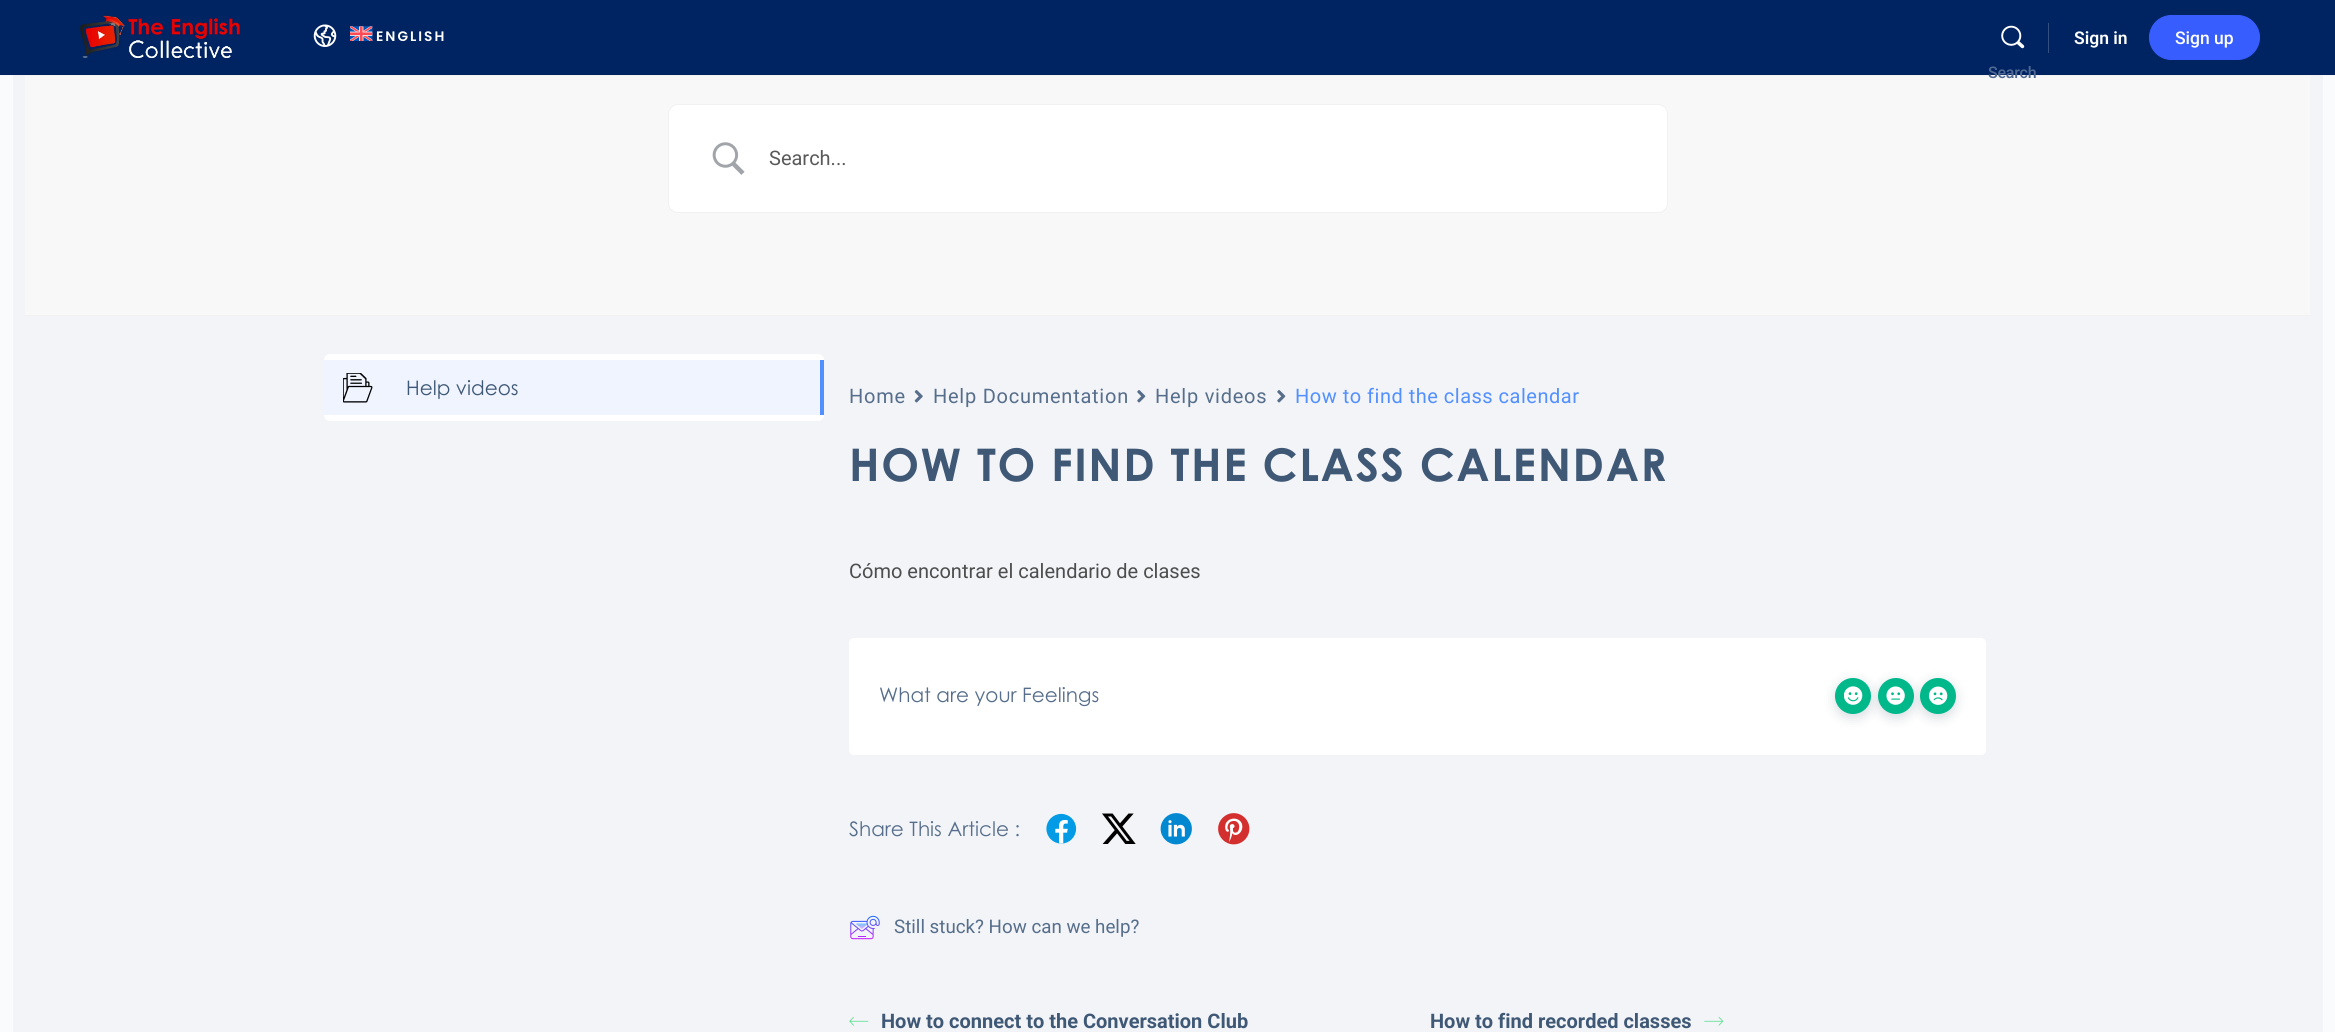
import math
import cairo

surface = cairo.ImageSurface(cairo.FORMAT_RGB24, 2335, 1032)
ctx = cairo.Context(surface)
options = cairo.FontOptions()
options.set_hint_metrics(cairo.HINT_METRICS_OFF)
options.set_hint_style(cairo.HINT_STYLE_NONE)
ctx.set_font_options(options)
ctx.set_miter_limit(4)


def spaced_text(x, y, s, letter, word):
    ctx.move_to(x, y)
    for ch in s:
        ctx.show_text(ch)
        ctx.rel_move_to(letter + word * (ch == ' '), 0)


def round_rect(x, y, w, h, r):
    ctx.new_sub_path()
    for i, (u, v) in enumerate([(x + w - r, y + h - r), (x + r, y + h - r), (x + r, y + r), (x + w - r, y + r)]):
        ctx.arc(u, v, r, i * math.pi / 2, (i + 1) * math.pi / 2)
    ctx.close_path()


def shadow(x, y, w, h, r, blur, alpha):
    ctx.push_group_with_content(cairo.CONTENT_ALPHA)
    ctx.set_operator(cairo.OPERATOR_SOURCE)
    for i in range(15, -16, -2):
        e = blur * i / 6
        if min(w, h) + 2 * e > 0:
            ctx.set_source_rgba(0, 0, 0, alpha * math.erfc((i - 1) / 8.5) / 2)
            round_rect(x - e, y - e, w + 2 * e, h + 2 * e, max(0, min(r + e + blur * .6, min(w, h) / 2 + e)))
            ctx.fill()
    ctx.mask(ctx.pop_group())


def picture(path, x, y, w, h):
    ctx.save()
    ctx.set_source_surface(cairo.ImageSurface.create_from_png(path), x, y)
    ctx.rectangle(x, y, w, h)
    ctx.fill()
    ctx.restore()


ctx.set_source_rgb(0.98, 0.984, 0.992)
ctx.paint()
ctx.set_source_rgb(0.957, 0.965, 0.973)
ctx.rectangle(0, 75, 2335, 1)
ctx.fill()
ctx.set_source_rgb(0, 0.141, 0.384)
ctx.rectangle(0, 0, 2335, 75)
ctx.fill()
picture("img1.png", 80, 15, 160, 45)
picture("img2.png", 313, 24, 24, 23)
picture("img3.png", 350, 26, 23, 15)
ctx.select_font_face("Poppins SemiBold")
ctx.set_font_size(13.75)
ctx.set_source_rgb(1, 1, 1)
spaced_text(376, 41, "ENGLISH", 2, 0)
ctx.set_source_rgb(0.2, 0.314, 0.506)
ctx.rectangle(2048, 23, 1, 30)
ctx.fill()
ctx.select_font_face("Roboto SemiBold")
ctx.set_font_size(17.5)
ctx.set_source_rgb(1, 1, 1)
ctx.move_to(2074, 44)
ctx.show_text("Sign in")
ctx.set_source_rgb(0.22, 0.365, 1)
round_rect(2149.5, 15.5, 110, 44, 22)
ctx.fill_preserve()
ctx.set_line_width(1)
ctx.stroke()
ctx.select_font_face("Roboto Medium")
ctx.set_source_rgb(1, 1, 1)
ctx.move_to(2175, 44)
ctx.show_text("Sign up")
picture("img4.png", 2001, 25, 24, 24)
ctx.set_source_rgb(0.949, 0.957, 0.969)
ctx.rectangle(13, 76, 2310, 956)
ctx.fill()
ctx.set_source_rgb(0.929, 0.937, 0.949)
ctx.rectangle(13, 75, 2310, 1)
ctx.fill()
ctx.set_source_rgb(0.969, 0.969, 0.969)
ctx.rectangle(25, 76, 2285, 239)
ctx.fill()
ctx.set_source_rgb(0.949, 0.949, 0.949)
ctx.rectangle(25, 75, 2285, 1)
ctx.fill()
ctx.set_font_size(16)
ctx.set_source_rgb(0.318, 0.412, 0.573)
spaced_text(1988, 78, "Search", -0.25, 0)
ctx.set_source_rgb(0.945, 0.945, 0.945)
ctx.rectangle(25, 315, 2285, 1)
ctx.fill()
ctx.set_source_rgb(1, 1, 1)
round_rect(668.5, 104.5, 999, 108, 9.5)
ctx.fill_preserve()
ctx.set_source_rgb(0.945, 0.945, 0.945)
ctx.stroke()
picture("img5.png", 712, 142, 33, 33)
ctx.select_font_face("Roboto")
ctx.set_font_size(20)
ctx.set_source_rgb(0.349, 0.349, 0.349)
ctx.move_to(769, 165)
ctx.show_text("Search...")
ctx.set_source_rgb(1, 1, 1)
round_rect(324, 354, 500, 67, 6)
ctx.fill()
ctx.set_source_rgb(0.937, 0.957, 1)
ctx.rectangle(324, 360, 496, 55)
ctx.fill()
ctx.set_source_rgb(0.322, 0.561, 1)
ctx.rectangle(820, 360, 4, 55)
ctx.fill()
picture("img6.png", 343, 373, 30, 30)
ctx.select_font_face("Century Gothic")
ctx.set_source_rgb(0.247, 0.345, 0.463)
ctx.move_to(406, 395)
ctx.show_text("Help videos")
ctx.select_font_face("Roboto")
ctx.set_source_rgb(0.337, 0.431, 0.545)
spaced_text(849, 403, "Home", 0.75, 0)
picture("img7.png", 914, 390, 9, 13)
spaced_text(933, 403, "Help Documentation", 0.75, 0)
picture("img8.png", 1137, 390, 9, 13)
spaced_text(1155, 403, "Help videos", 0.75, 0)
picture("img8.png", 1277, 390, 9, 13)
ctx.set_source_rgb(0.322, 0.561, 1)
spaced_text(1295, 403, "How to find the class calendar", 0.5, 0)
ctx.select_font_face("Century Gothic", cairo.FONT_SLANT_NORMAL, cairo.FONT_WEIGHT_BOLD)
ctx.set_font_size(45)
ctx.set_source_rgb(0.247, 0.345, 0.463)
spaced_text(849, 481, "HOW TO FIND THE CLASS CALENDAR", 1.6, 0)
ctx.select_font_face("Roboto")
ctx.set_font_size(20)
ctx.set_source_rgb(0.302, 0.302, 0.302)
ctx.move_to(849, 578)
ctx.show_text("Cómo encontrar el calendario de clases")
ctx.set_source_rgb(1, 1, 1)
round_rect(849, 638, 1137, 117, 5)
ctx.fill()
ctx.select_font_face("Century Gothic")
ctx.set_source_rgb(0.337, 0.431, 0.545)
ctx.move_to(879, 702)
ctx.show_text("What are your Feelings")
ctx.set_source_rgb(0.012, 0.114, 0.235)
shadow(1835, 681, 36, 37, 18, 6, 0.15)
ctx.set_source_rgb(0, 0.722, 0.541)
ctx.arc(1853, 696, 18, 0, 2 * math.pi)
ctx.fill()
ctx.set_source_rgb(0.012, 0.114, 0.235)
shadow(1878, 681, 36, 37, 18, 6, 0.15)
picture("img9.png", 1844, 686, 19, 19)
ctx.set_source_rgb(0, 0.722, 0.541)
ctx.arc(1896, 696, 18, 0, 2 * math.pi)
ctx.fill()
ctx.set_source_rgb(0.012, 0.114, 0.235)
shadow(1920, 681, 36, 37, 18, 6, 0.15)
picture("img10.png", 1886, 686, 19, 19)
ctx.set_source_rgb(0, 0.722, 0.541)
ctx.arc(1938, 696, 18, 0, 2 * math.pi)
ctx.fill()
picture("img11.png", 1929, 686, 19, 19)
ctx.set_source_rgb(0.337, 0.431, 0.545)
ctx.move_to(849, 836)
ctx.show_text("Share This Article :")
picture("img12.png", 1046, 813, 31, 31)
picture("img13.png", 1102, 813, 34, 31)
picture("img14.png", 1160, 813, 32, 32)
picture("img15.png", 1218, 813, 32, 32)
picture("img16.png", 850, 915, 30, 25)
ctx.select_font_face("Roboto")
ctx.set_font_size(18.75)
ctx.move_to(894, 933)
ctx.show_text("Still stuck? How can we help?")
picture("img17.png", 849, 1016, 20, 10)
ctx.select_font_face("Roboto", cairo.FONT_SLANT_NORMAL, cairo.FONT_WEIGHT_BOLD)
ctx.set_font_size(20)
ctx.set_source_rgb(0.247, 0.345, 0.463)
ctx.move_to(881, 1028)
ctx.show_text("How to connect to the Conversation Club")
ctx.move_to(1430, 1028)
ctx.show_text("How to find recorded classes")
picture("img18.png", 1704, 1017, 20, 9)
surface.write_to_png("page.png")
